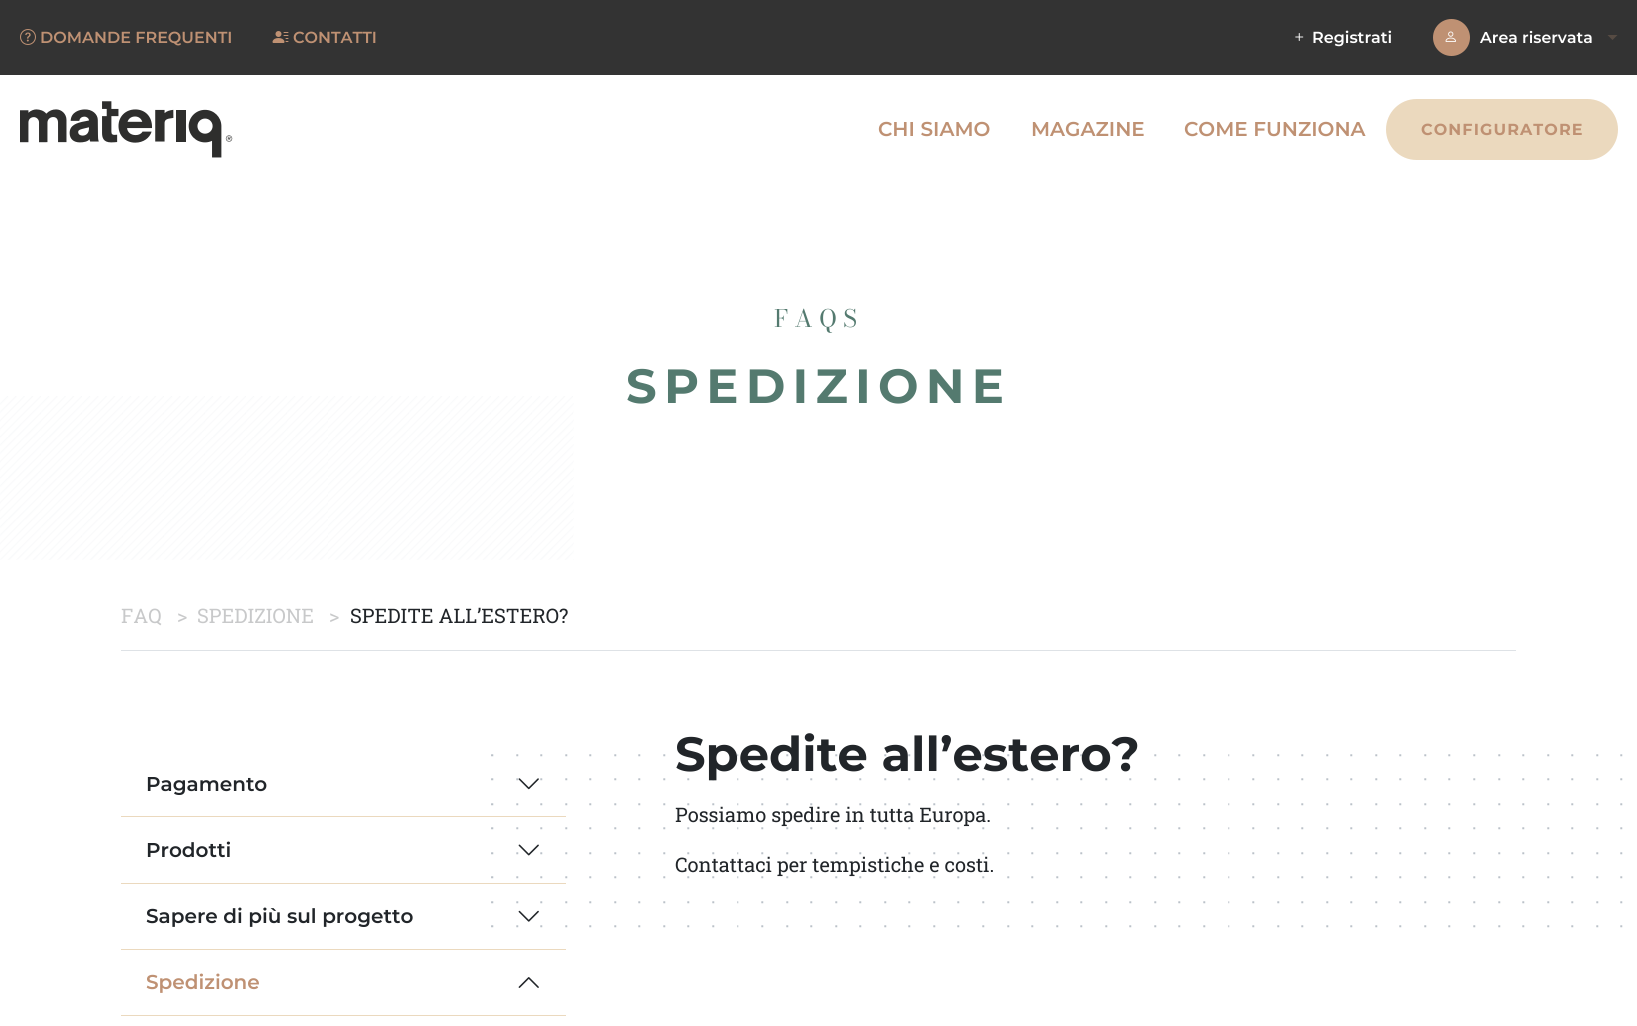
import math
import cairo

surface = cairo.ImageSurface(cairo.FORMAT_RGB24, 1637, 1026)
ctx = cairo.Context(surface)
options = cairo.FontOptions()
options.set_hint_metrics(cairo.HINT_METRICS_OFF)
options.set_hint_style(cairo.HINT_STYLE_NONE)
ctx.set_font_options(options)
ctx.set_miter_limit(4)


def spaced_text(x, y, s, letter, word):
    ctx.move_to(x, y)
    for ch in s:
        ctx.show_text(ch)
        ctx.rel_move_to(letter + word * (ch == ' '), 0)


def round_rect(x, y, w, h, r):
    ctx.new_sub_path()
    for i, (u, v) in enumerate([(x + w - r, y + h - r), (x + r, y + h - r), (x + r, y + r), (x + w - r, y + r)]):
        ctx.arc(u, v, r, i * math.pi / 2, (i + 1) * math.pi / 2)
    ctx.close_path()


def picture(path, x, y, w, h):
    ctx.save()
    ctx.set_source_surface(cairo.ImageSurface.create_from_png(path), x, y)
    ctx.rectangle(x, y, w, h)
    ctx.fill()
    ctx.restore()


ctx.set_source_rgb(1, 1, 1)
ctx.paint()
ctx.set_source_rgb(0.2, 0.2, 0.2)
ctx.rectangle(0, 0, 1637, 75)
ctx.fill()
picture("img1.png", 20, 29, 16, 16)
ctx.select_font_face("Montserrat SemiBold")
ctx.set_font_size(16)
ctx.set_source_rgb(0.749, 0.569, 0.451)
ctx.move_to(40, 43)
ctx.show_text("DOMANDE FREQUENTI")
picture("img2.png", 272, 31, 17, 12)
ctx.move_to(293, 43)
ctx.show_text("CONTATTI")
picture("img3.png", 1295, 33, 9, 8)
ctx.set_source_rgb(1, 1, 1)
ctx.move_to(1312, 43)
ctx.show_text("Registrati")
ctx.set_source_rgb(0.749, 0.569, 0.451)
ctx.new_path()
ctx.arc(1451.5, 37.5, 18.5, 0, 2 * math.pi)
ctx.fill()
picture("img4.png", 1445, 31, 11, 11)
ctx.set_font_size(15.75)
ctx.set_source_rgb(1, 1, 1)
ctx.move_to(1480, 43)
ctx.show_text("Area riservata")
ctx.set_source_rgb(0.337, 0.294, 0.263)
ctx.new_path()
ctx.move_to(1607.5, 35)
ctx.line_to(1617.5, 35)
ctx.line_to(1612.5, 40)
ctx.close_path()
ctx.fill()
picture("img5.png", 20, 101, 213, 57)
ctx.set_font_size(20)
ctx.set_source_rgb(0.749, 0.569, 0.451)
ctx.move_to(878, 136)
ctx.show_text("CHI SIAMO")
ctx.move_to(1031, 136)
ctx.show_text("MAGAZINE")
ctx.move_to(1184, 136)
ctx.show_text("COME FUNZIONA")
ctx.set_source_rgb(0.918, 0.851, 0.745)
round_rect(1387.5, 100.5, 229, 58, 29)
ctx.fill_preserve()
ctx.set_line_width(3)
ctx.stroke()
ctx.select_font_face("Montserrat", cairo.FONT_SLANT_NORMAL, cairo.FONT_WEIGHT_BOLD)
ctx.set_font_size(16)
ctx.set_source_rgb(0.749, 0.569, 0.451)
spaced_text(1421, 135, "CONFIGURATORE", 1.1, 0)
ctx.select_font_face("Bodoni Moda")
ctx.set_font_size(24)
ctx.set_source_rgb(0.329, 0.478, 0.435)
spaced_text(774, 327, "FAQS", 6, 0)
ctx.select_font_face("Montserrat", cairo.FONT_SLANT_NORMAL, cairo.FONT_WEIGHT_BOLD)
ctx.set_font_size(48)
spaced_text(626, 403, "SPEDIZIONE", 7.25, 0)
picture("img6.png", 0, 396, 574, 164)
ctx.set_source_rgb(0.871, 0.886, 0.902)
ctx.rectangle(121, 650, 1395, 1)
ctx.fill()
ctx.select_font_face("Roboto Slab")
ctx.set_font_size(20)
ctx.set_source_rgb(0.784, 0.788, 0.792)
ctx.move_to(121, 623)
ctx.show_text("FAQ")
ctx.move_to(177, 623)
ctx.show_text(">")
ctx.move_to(197, 623)
ctx.show_text("SPEDIZIONE")
ctx.move_to(329, 623)
ctx.show_text(">")
ctx.set_source_rgb(0.129, 0.145, 0.161)
ctx.move_to(350, 623)
ctx.show_text("SPEDITE ALL’ESTERO?")
picture("img11.png", 491, 754, 1132, 174)
ctx.set_source_rgb(0.918, 0.851, 0.745)
ctx.rectangle(121, 816, 445, 1)
ctx.fill()
ctx.select_font_face("Montserrat SemiBold")
ctx.set_source_rgb(0.129, 0.145, 0.161)
ctx.move_to(146, 791)
ctx.show_text("Pagamento")
picture("img7.png", 518, 778, 21, 12)
ctx.set_source_rgb(0.918, 0.851, 0.745)
ctx.rectangle(121, 883, 445, 1)
ctx.fill()
ctx.set_source_rgb(0.129, 0.145, 0.161)
ctx.move_to(146, 857)
ctx.show_text("Prodotti")
picture("img8.png", 518, 844, 21, 12)
ctx.set_source_rgb(0.918, 0.851, 0.745)
ctx.rectangle(121, 949, 445, 1)
ctx.fill()
ctx.set_source_rgb(0.129, 0.145, 0.161)
ctx.move_to(146, 923)
ctx.show_text("Sapere di più sul progetto")
picture("img9.png", 518, 910, 21, 12)
ctx.set_source_rgb(0.918, 0.851, 0.745)
ctx.rectangle(121, 1015, 445, 1)
ctx.fill()
ctx.set_source_rgb(0.749, 0.569, 0.451)
ctx.move_to(146, 989)
ctx.show_text("Spedizione")
picture("img10.png", 518, 977, 21, 11)
ctx.select_font_face("Montserrat", cairo.FONT_SLANT_NORMAL, cairo.FONT_WEIGHT_BOLD)
ctx.set_font_size(48)
ctx.set_source_rgb(0.129, 0.145, 0.161)
ctx.move_to(675, 771)
ctx.show_text("Spedite all’estero?")
ctx.select_font_face("Roboto Slab")
ctx.set_font_size(20)
ctx.move_to(675, 822)
ctx.show_text("Possiamo spedire in tutta Europa.")
ctx.move_to(675, 872)
ctx.show_text("Contattaci")
ctx.move_to(777, 872)
ctx.show_text("per tempistiche e costi.")
surface.write_to_png("page.png")
